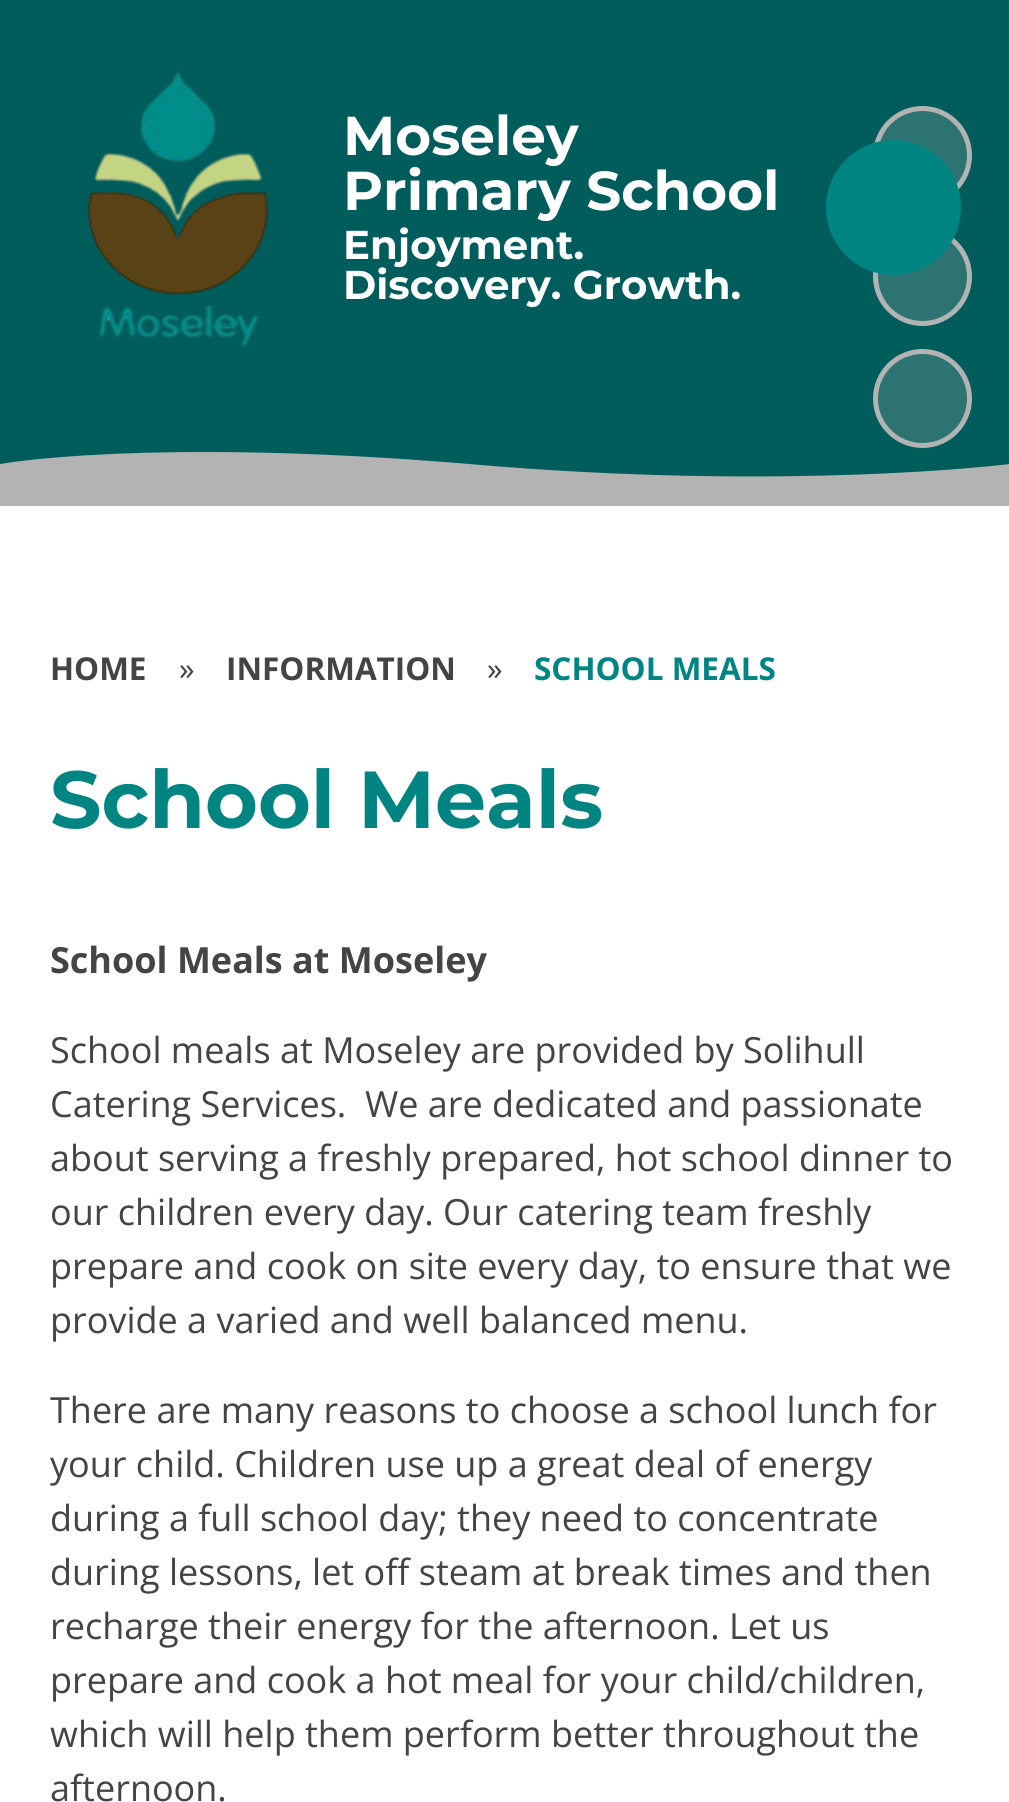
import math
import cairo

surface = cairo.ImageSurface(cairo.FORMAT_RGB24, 1009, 1802)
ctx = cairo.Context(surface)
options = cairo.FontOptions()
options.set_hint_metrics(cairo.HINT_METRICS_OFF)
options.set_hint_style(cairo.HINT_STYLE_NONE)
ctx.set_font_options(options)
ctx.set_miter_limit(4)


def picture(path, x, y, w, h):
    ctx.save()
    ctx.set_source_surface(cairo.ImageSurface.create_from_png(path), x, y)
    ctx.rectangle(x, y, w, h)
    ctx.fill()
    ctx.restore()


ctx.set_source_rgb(1, 1, 1)
ctx.paint()
ctx.set_source_rgb(0, 0.365, 0.361)
ctx.rectangle(0, 0, 1009, 477)
ctx.fill()
ctx.set_source_rgb(0.176, 0.451, 0.443)
ctx.arc(922.5, 155.5, 47, 0, 2 * math.pi)
ctx.fill_preserve()
ctx.set_source_rgb(0.702, 0.702, 0.702)
ctx.set_line_width(5)
ctx.stroke()
ctx.set_source_rgb(0.176, 0.451, 0.443)
ctx.arc(922.5, 276.5, 47, 0, 2 * math.pi)
ctx.fill_preserve()
ctx.set_source_rgb(0.702, 0.702, 0.702)
ctx.stroke()
ctx.set_source_rgb(0.176, 0.451, 0.443)
ctx.arc(922.5, 398.5, 47, 0, 2 * math.pi)
ctx.fill_preserve()
ctx.set_source_rgb(0.702, 0.702, 0.702)
ctx.stroke()
ctx.save()
ctx.rectangle(0, 452, 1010, 54)
ctx.clip()
ctx.new_path()
ctx.move_to(0, 510)
ctx.line_to(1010, 510)
ctx.line_to(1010, 464)
ctx.curve_to(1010, 464, 790, 492, 469, 464)
ctx.curve_to(147, 437, 0, 464, 0, 464)
ctx.close_path()
ctx.fill()
ctx.restore()
picture("img1.png", 87, 68, 182, 279)
ctx.select_font_face("Montserrat", cairo.FONT_SLANT_NORMAL, cairo.FONT_WEIGHT_BOLD)
ctx.set_font_size(54.75)
ctx.set_source_rgb(1, 1, 1)
ctx.move_to(343, 155)
ctx.show_text("Moseley")
ctx.move_to(343, 210)
ctx.show_text("Primary School")
ctx.set_font_size(40.25)
ctx.move_to(343, 259)
ctx.show_text("Enjoyment.")
ctx.move_to(343, 299)
ctx.show_text("Discovery. Growth.")
ctx.set_source_rgb(0, 0.522, 0.514)
ctx.new_path()
ctx.arc(893.5, 207.5, 67.5, 0, 2 * math.pi)
ctx.fill()
ctx.select_font_face("Open Sans", cairo.FONT_SLANT_NORMAL, cairo.FONT_WEIGHT_BOLD)
ctx.set_font_size(31.5)
ctx.set_source_rgb(0.267, 0.267, 0.267)
ctx.move_to(50, 680)
ctx.show_text("HOME")
ctx.select_font_face("Open Sans")
ctx.move_to(179, 680)
ctx.show_text("»")
ctx.select_font_face("Open Sans", cairo.FONT_SLANT_NORMAL, cairo.FONT_WEIGHT_BOLD)
ctx.move_to(226, 680)
ctx.show_text("INFORMATION")
ctx.select_font_face("Open Sans")
ctx.move_to(487, 680)
ctx.show_text("»")
ctx.select_font_face("Open Sans", cairo.FONT_SLANT_NORMAL, cairo.FONT_WEIGHT_BOLD)
ctx.set_source_rgb(0, 0.522, 0.514)
ctx.move_to(534, 680)
ctx.show_text("SCHOOL MEALS")
ctx.select_font_face("Montserrat", cairo.FONT_SLANT_NORMAL, cairo.FONT_WEIGHT_BOLD)
ctx.set_font_size(80.75)
ctx.move_to(50, 828)
ctx.show_text("School Meals")
ctx.select_font_face("Open Sans", cairo.FONT_SLANT_NORMAL, cairo.FONT_WEIGHT_BOLD)
ctx.set_font_size(36)
ctx.set_source_rgb(0.267, 0.267, 0.267)
ctx.move_to(50, 973)
ctx.show_text("School Meals at Moseley")
ctx.select_font_face("Open Sans")
ctx.move_to(50, 1063)
ctx.show_text("School meals at Moseley are provided by Solihull")
ctx.move_to(50, 1117)
ctx.show_text("Catering Services.  We are dedicated and passionate")
ctx.move_to(50, 1171)
ctx.show_text("about serving a freshly prepared, hot school dinner to")
ctx.move_to(50, 1225)
ctx.show_text("our children every day. Our catering team freshly")
ctx.move_to(50, 1279)
ctx.show_text("prepare and cook on site every day, to ensure that we")
ctx.move_to(50, 1333)
ctx.show_text("provide a varied and well balanced menu.")
ctx.move_to(50, 1423)
ctx.show_text("There are many reasons to choose a school lunch for")
ctx.move_to(50, 1477)
ctx.show_text("your child. Children use up a great deal of energy")
ctx.move_to(50, 1531)
ctx.show_text("during a full school day; they need to concentrate")
ctx.move_to(50, 1585)
ctx.show_text("during lessons, let off steam at break times and then")
ctx.move_to(50, 1639)
ctx.show_text("recharge their energy for the afternoon. Let us")
ctx.move_to(50, 1693)
ctx.show_text("prepare and cook a hot meal for your child/children,")
ctx.move_to(50, 1747)
ctx.show_text("which will help them perform better throughout the")
ctx.move_to(50, 1801)
ctx.show_text("afternoon.")
surface.write_to_png("page.png")
